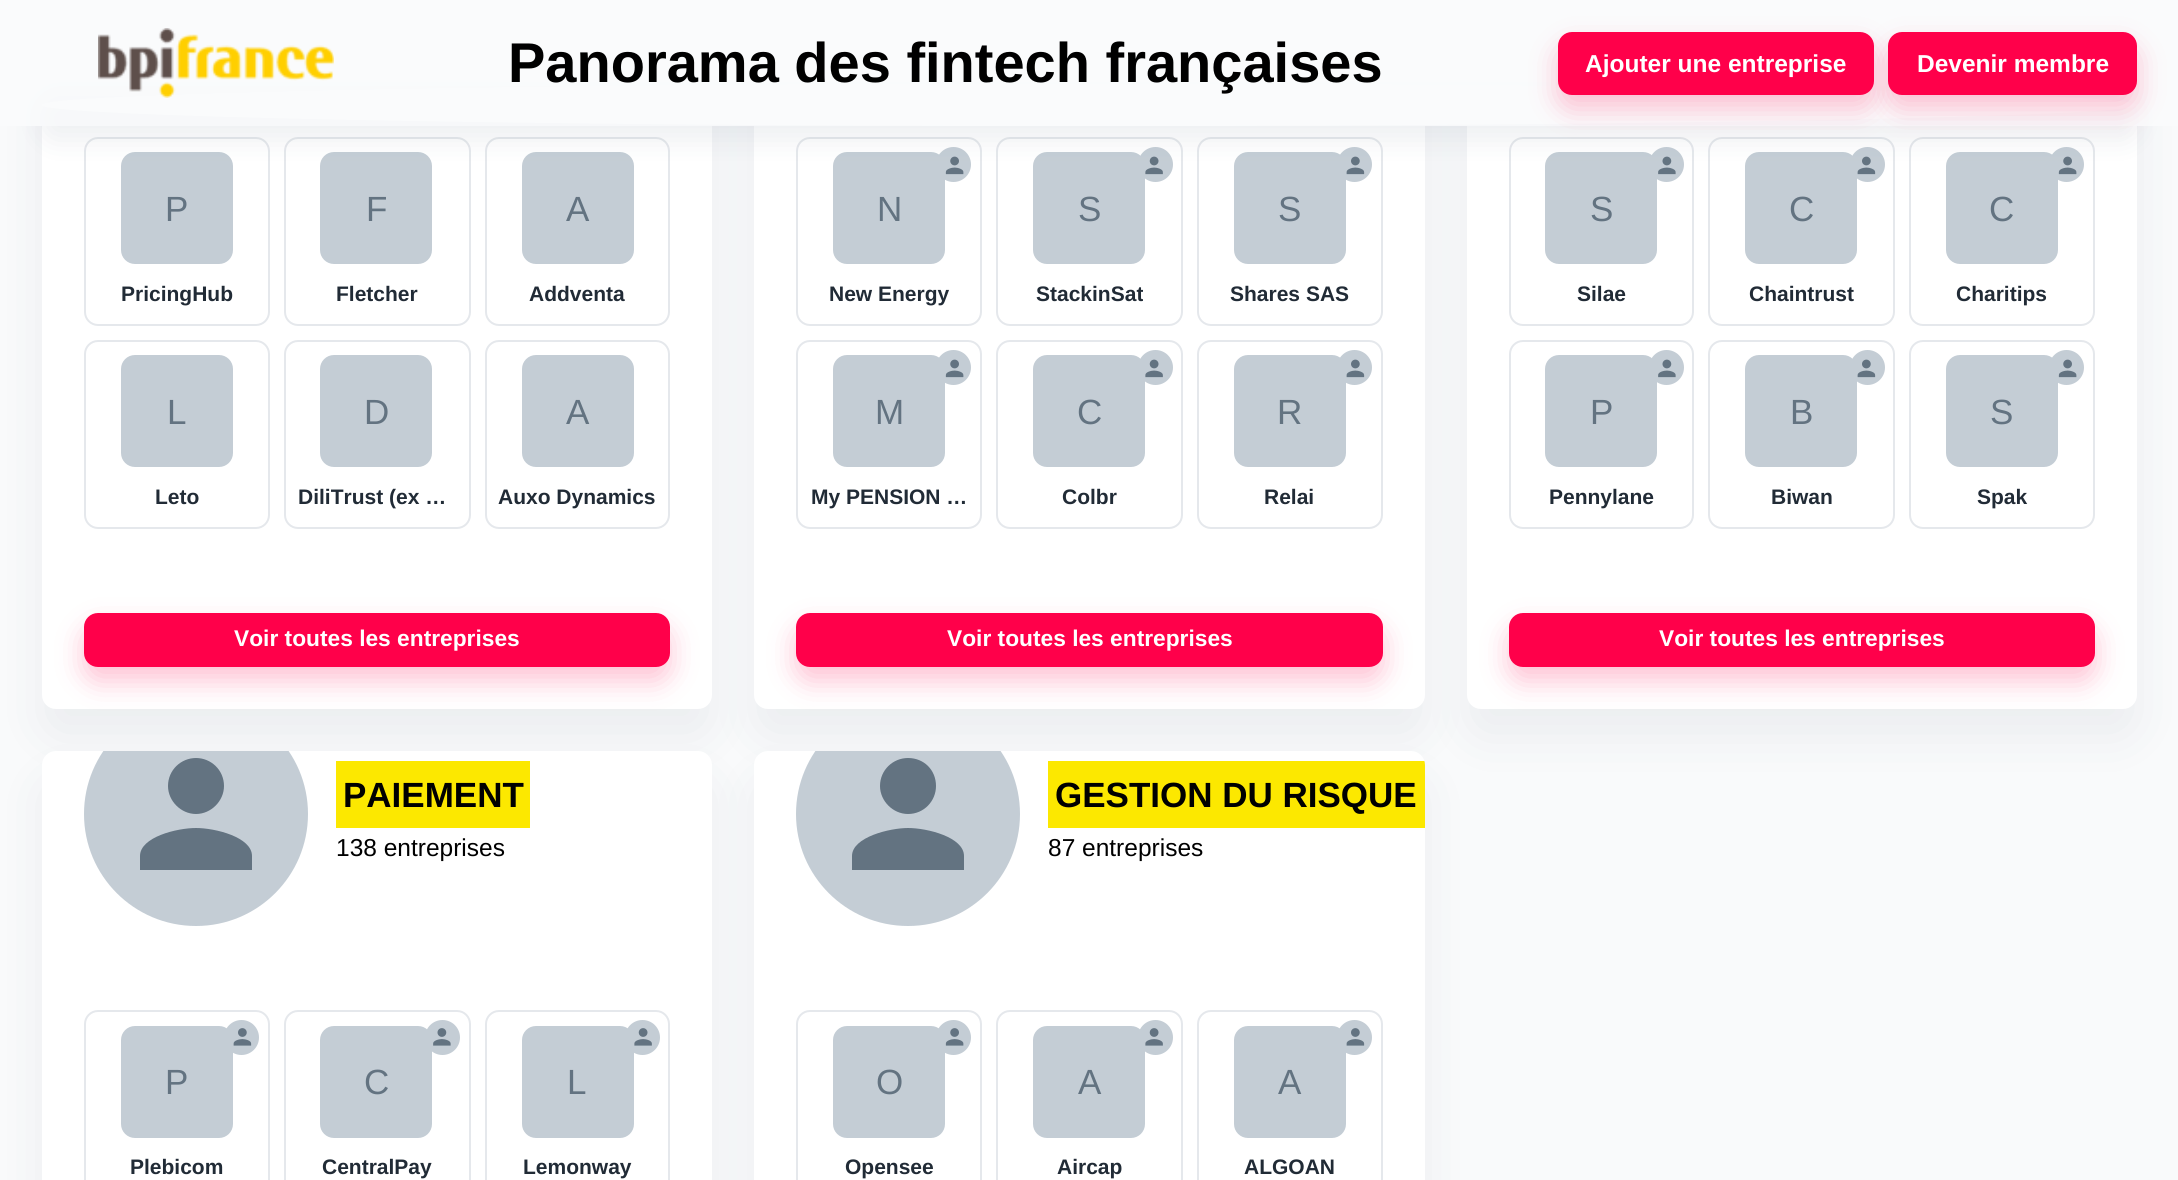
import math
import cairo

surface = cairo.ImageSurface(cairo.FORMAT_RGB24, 2178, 1180)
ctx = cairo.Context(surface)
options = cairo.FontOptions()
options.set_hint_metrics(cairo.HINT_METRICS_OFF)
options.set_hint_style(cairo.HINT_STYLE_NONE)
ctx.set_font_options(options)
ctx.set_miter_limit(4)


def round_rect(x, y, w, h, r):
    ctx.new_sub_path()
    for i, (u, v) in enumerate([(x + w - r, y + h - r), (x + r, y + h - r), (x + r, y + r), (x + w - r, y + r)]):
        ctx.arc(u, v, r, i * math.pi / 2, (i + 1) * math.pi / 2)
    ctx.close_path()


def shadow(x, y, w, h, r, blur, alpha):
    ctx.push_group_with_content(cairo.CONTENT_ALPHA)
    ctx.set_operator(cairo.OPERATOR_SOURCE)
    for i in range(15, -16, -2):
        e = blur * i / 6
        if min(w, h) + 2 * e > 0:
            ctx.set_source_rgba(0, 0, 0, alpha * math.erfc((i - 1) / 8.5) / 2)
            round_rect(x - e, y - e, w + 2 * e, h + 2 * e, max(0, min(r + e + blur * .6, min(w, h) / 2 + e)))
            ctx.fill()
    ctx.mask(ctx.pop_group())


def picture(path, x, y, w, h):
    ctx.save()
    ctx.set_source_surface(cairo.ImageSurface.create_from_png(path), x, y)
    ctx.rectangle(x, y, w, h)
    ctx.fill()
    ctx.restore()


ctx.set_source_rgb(0.976, 0.98, 0.984)
ctx.paint()
ctx.set_source_rgb(0.569, 0.62, 0.671)
shadow(49, -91, 656, 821, 7, 28, 0.16)
ctx.set_source_rgb(1, 1, 1)
round_rect(42, -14, 670, 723, 14)
ctx.fill()
ctx.set_source_rgb(0.569, 0.62, 0.671)
shadow(761, -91, 657, 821, 7, 28, 0.16)
ctx.set_source_rgb(1, 1, 1)
round_rect(754, -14, 671, 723, 14)
ctx.fill()
ctx.set_source_rgb(0.569, 0.62, 0.671)
shadow(1474, -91, 656, 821, 7, 28, 0.16)
ctx.set_source_rgb(1, 1, 1)
round_rect(1467, -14, 670, 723, 14)
ctx.fill()
ctx.rectangle(0, 0, 2178, 126)
ctx.fill()
round_rect(85, 138, 184, 187, 13)
ctx.set_source_rgb(0.898, 0.91, 0.922)
ctx.stroke()
ctx.set_source_rgb(0.769, 0.804, 0.835)
round_rect(121, 152, 112, 112, 14)
ctx.fill()
round_rect(285, 138, 185, 187, 13)
ctx.set_source_rgb(0.898, 0.91, 0.922)
ctx.stroke()
ctx.set_source_rgb(0.769, 0.804, 0.835)
round_rect(320, 152, 112, 112, 14)
ctx.fill()
round_rect(486, 138, 183, 187, 13)
ctx.set_source_rgb(0.898, 0.91, 0.922)
ctx.stroke()
ctx.set_source_rgb(0.769, 0.804, 0.835)
round_rect(522, 152, 112, 112, 14)
ctx.fill()
round_rect(797, 138, 184, 187, 13)
ctx.set_source_rgb(0.898, 0.91, 0.922)
ctx.stroke()
ctx.set_source_rgb(0.769, 0.804, 0.835)
ctx.arc(953.5, 164.5, 17.5, 0, 2 * math.pi)
ctx.fill()
picture("img2.png", 945, 156, 19, 19)
round_rect(833, 152, 112, 112, 14)
ctx.fill()
round_rect(997, 138, 185, 187, 13)
ctx.set_source_rgb(0.898, 0.91, 0.922)
ctx.stroke()
ctx.set_source_rgb(0.769, 0.804, 0.835)
ctx.arc(1155.5, 164.5, 17.5, 0, 2 * math.pi)
ctx.fill()
picture("img3.png", 1145, 156, 18, 19)
round_rect(1033, 152, 112, 112, 14)
ctx.fill()
round_rect(1198, 138, 184, 187, 13)
ctx.set_source_rgb(0.898, 0.91, 0.922)
ctx.stroke()
ctx.set_source_rgb(0.769, 0.804, 0.835)
ctx.arc(1354.5, 164.5, 17.5, 0, 2 * math.pi)
ctx.fill()
picture("img4.png", 1346, 156, 19, 19)
round_rect(1234, 152, 112, 112, 14)
ctx.fill()
round_rect(1510, 138, 183, 187, 13)
ctx.set_source_rgb(0.898, 0.91, 0.922)
ctx.stroke()
ctx.set_source_rgb(0.769, 0.804, 0.835)
ctx.arc(1666.5, 164.5, 17.5, 0, 2 * math.pi)
ctx.fill()
picture("img5.png", 1658, 156, 18, 19)
round_rect(1545, 152, 112, 112, 14)
ctx.fill()
round_rect(1709, 138, 185, 187, 13)
ctx.set_source_rgb(0.898, 0.91, 0.922)
ctx.stroke()
ctx.set_source_rgb(0.769, 0.804, 0.835)
ctx.arc(1867.5, 164.5, 17.5, 0, 2 * math.pi)
ctx.fill()
picture("img4.png", 1857, 156, 19, 19)
round_rect(1745, 152, 112, 112, 14)
ctx.fill()
round_rect(1910, 138, 184, 187, 13)
ctx.set_source_rgb(0.898, 0.91, 0.922)
ctx.stroke()
ctx.set_source_rgb(0.769, 0.804, 0.835)
ctx.arc(2066.5, 164.5, 17.5, 0, 2 * math.pi)
ctx.fill()
picture("img2.png", 2058, 156, 19, 19)
round_rect(1946, 152, 112, 112, 14)
ctx.fill()
ctx.save()
ctx.set_fill_rule(cairo.FILL_RULE_EVEN_ODD)
ctx.new_path()
ctx.move_to(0, 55)
ctx.line_to(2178, 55)
ctx.line_to(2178, 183)
ctx.line_to(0, 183)
ctx.close_path()
ctx.move_to(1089.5, 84)
ctx.curve_to(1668, 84, 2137, 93.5, 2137, 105)
ctx.curve_to(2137, 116.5, 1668, 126, 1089.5, 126)
ctx.curve_to(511, 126, 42, 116.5, 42, 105)
ctx.curve_to(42, 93.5, 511, 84, 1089.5, 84)
ctx.close_path()
ctx.clip()
ctx.set_source_rgb(0.569, 0.62, 0.671)
shadow(42, 98, 2095, 42, 21, 14, 0.16)
ctx.restore()
ctx.set_source_rgba(0.976, 0.98, 0.984, 0.8)
ctx.rectangle(0, 0, 2178, 126)
ctx.fill()
picture("img1.png", 98, 28, 236, 70)
ctx.select_font_face("Liberation Sans", cairo.FONT_SLANT_NORMAL, cairo.FONT_WEIGHT_BOLD)
ctx.set_font_size(56)
ctx.set_source_rgb(0, 0, 0)
ctx.move_to(508, 82)
ctx.show_text("Panorama des fintech françaises")
ctx.set_source_rgb(1, 0, 0.29)
shadow(1558, 46, 316, 63, 14, 14, 0.24)
ctx.set_source_rgb(1, 0, 0.29)
round_rect(1558, 32, 316, 63, 14)
ctx.fill()
ctx.set_font_size(24.5)
ctx.set_source_rgb(1, 1, 1)
ctx.move_to(1585, 72)
ctx.show_text("Ajouter une entreprise")
ctx.set_source_rgb(1, 0, 0.29)
shadow(1888, 46, 249, 63, 14, 14, 0.24)
ctx.set_source_rgb(1, 0, 0.29)
round_rect(1888, 32, 249, 63, 14)
ctx.fill()
ctx.set_source_rgb(1, 1, 1)
ctx.move_to(1917, 72)
ctx.show_text("Devenir membre")
ctx.select_font_face("Liberation Sans")
ctx.set_font_size(35)
ctx.set_source_rgb(0.388, 0.451, 0.506)
ctx.move_to(165, 221)
ctx.show_text("P")
ctx.select_font_face("Liberation Sans", cairo.FONT_SLANT_NORMAL, cairo.FONT_WEIGHT_BOLD)
ctx.set_font_size(21)
ctx.set_source_rgb(0.129, 0.169, 0.212)
ctx.move_to(121, 301)
ctx.show_text("PricingHub")
ctx.select_font_face("Liberation Sans")
ctx.set_font_size(35)
ctx.set_source_rgb(0.388, 0.451, 0.506)
ctx.move_to(366, 221)
ctx.show_text("F")
ctx.select_font_face("Liberation Sans", cairo.FONT_SLANT_NORMAL, cairo.FONT_WEIGHT_BOLD)
ctx.set_font_size(21)
ctx.set_source_rgb(0.129, 0.169, 0.212)
ctx.move_to(336, 301)
ctx.show_text("Fletcher")
ctx.select_font_face("Liberation Sans")
ctx.set_font_size(35)
ctx.set_source_rgb(0.388, 0.451, 0.506)
ctx.move_to(566, 221)
ctx.show_text("A")
ctx.select_font_face("Liberation Sans", cairo.FONT_SLANT_NORMAL, cairo.FONT_WEIGHT_BOLD)
ctx.set_font_size(21)
ctx.set_source_rgb(0.129, 0.169, 0.212)
ctx.move_to(529, 301)
ctx.show_text("Addventa")
round_rect(85, 341, 184, 187, 13)
ctx.set_source_rgb(0.898, 0.91, 0.922)
ctx.stroke()
ctx.set_source_rgb(0.769, 0.804, 0.835)
round_rect(121, 355, 112, 112, 14)
ctx.fill()
ctx.select_font_face("Liberation Sans")
ctx.set_font_size(35)
ctx.set_source_rgb(0.388, 0.451, 0.506)
ctx.move_to(167, 424)
ctx.show_text("L")
ctx.select_font_face("Liberation Sans", cairo.FONT_SLANT_NORMAL, cairo.FONT_WEIGHT_BOLD)
ctx.set_font_size(21)
ctx.set_source_rgb(0.129, 0.169, 0.212)
ctx.move_to(155, 504)
ctx.show_text("Leto")
round_rect(285, 341, 185, 187, 13)
ctx.set_source_rgb(0.898, 0.91, 0.922)
ctx.stroke()
ctx.set_source_rgb(0.769, 0.804, 0.835)
round_rect(320, 355, 112, 112, 14)
ctx.fill()
ctx.select_font_face("Liberation Sans")
ctx.set_font_size(35)
ctx.set_source_rgb(0.388, 0.451, 0.506)
ctx.move_to(364, 424)
ctx.show_text("D")
ctx.select_font_face("Liberation Sans", cairo.FONT_SLANT_NORMAL, cairo.FONT_WEIGHT_BOLD)
ctx.set_font_size(21)
ctx.set_source_rgb(0.129, 0.169, 0.212)
ctx.move_to(298, 504)
ctx.show_text("DiliTrust (ex …")
round_rect(486, 341, 183, 187, 13)
ctx.set_source_rgb(0.898, 0.91, 0.922)
ctx.stroke()
ctx.set_source_rgb(0.769, 0.804, 0.835)
round_rect(522, 355, 112, 112, 14)
ctx.fill()
ctx.select_font_face("Liberation Sans")
ctx.set_font_size(35)
ctx.set_source_rgb(0.388, 0.451, 0.506)
ctx.move_to(566, 424)
ctx.show_text("A")
ctx.select_font_face("Liberation Sans", cairo.FONT_SLANT_NORMAL, cairo.FONT_WEIGHT_BOLD)
ctx.set_font_size(21)
ctx.set_source_rgb(0.129, 0.169, 0.212)
ctx.move_to(498, 504)
ctx.show_text("Auxo Dynamics")
ctx.set_source_rgb(1, 0, 0.29)
shadow(84, 627, 586, 54, 14, 14, 0.24)
ctx.set_source_rgb(1, 0, 0.29)
round_rect(84, 613, 586, 54, 14)
ctx.fill()
ctx.set_font_size(22.75)
ctx.set_source_rgb(1, 1, 1)
ctx.move_to(234, 646)
ctx.show_text("Voir toutes les entreprises")
ctx.select_font_face("Liberation Sans")
ctx.set_font_size(35)
ctx.set_source_rgb(0.388, 0.451, 0.506)
ctx.move_to(877, 221)
ctx.show_text("N")
ctx.select_font_face("Liberation Sans", cairo.FONT_SLANT_NORMAL, cairo.FONT_WEIGHT_BOLD)
ctx.set_font_size(21)
ctx.set_source_rgb(0.129, 0.169, 0.212)
ctx.move_to(829, 301)
ctx.show_text("New Energy")
ctx.select_font_face("Liberation Sans")
ctx.set_font_size(35)
ctx.set_source_rgb(0.388, 0.451, 0.506)
ctx.move_to(1078, 221)
ctx.show_text("S")
ctx.select_font_face("Liberation Sans", cairo.FONT_SLANT_NORMAL, cairo.FONT_WEIGHT_BOLD)
ctx.set_font_size(21)
ctx.set_source_rgb(0.129, 0.169, 0.212)
ctx.move_to(1036, 301)
ctx.show_text("StackinSat")
ctx.select_font_face("Liberation Sans")
ctx.set_font_size(35)
ctx.set_source_rgb(0.388, 0.451, 0.506)
ctx.move_to(1278, 221)
ctx.show_text("S")
ctx.select_font_face("Liberation Sans", cairo.FONT_SLANT_NORMAL, cairo.FONT_WEIGHT_BOLD)
ctx.set_font_size(21)
ctx.set_source_rgb(0.129, 0.169, 0.212)
ctx.move_to(1230, 301)
ctx.show_text("Shares SAS")
round_rect(797, 341, 184, 187, 13)
ctx.set_source_rgb(0.898, 0.91, 0.922)
ctx.stroke()
ctx.set_source_rgb(0.769, 0.804, 0.835)
ctx.arc(953.5, 367.5, 17.5, 0, 2 * math.pi)
ctx.fill()
picture("img2.png", 945, 359, 19, 19)
round_rect(833, 355, 112, 112, 14)
ctx.fill()
ctx.select_font_face("Liberation Sans")
ctx.set_font_size(35)
ctx.set_source_rgb(0.388, 0.451, 0.506)
ctx.move_to(875, 424)
ctx.show_text("M")
ctx.select_font_face("Liberation Sans", cairo.FONT_SLANT_NORMAL, cairo.FONT_WEIGHT_BOLD)
ctx.set_font_size(21)
ctx.set_source_rgb(0.129, 0.169, 0.212)
ctx.move_to(811, 504)
ctx.show_text("My PENSION …")
round_rect(997, 341, 185, 187, 13)
ctx.set_source_rgb(0.898, 0.91, 0.922)
ctx.stroke()
ctx.set_source_rgb(0.769, 0.804, 0.835)
ctx.arc(1155.5, 367.5, 17.5, 0, 2 * math.pi)
ctx.fill()
picture("img3.png", 1145, 359, 18, 19)
round_rect(1033, 355, 112, 112, 14)
ctx.fill()
ctx.select_font_face("Liberation Sans")
ctx.set_font_size(35)
ctx.set_source_rgb(0.388, 0.451, 0.506)
ctx.move_to(1077, 424)
ctx.show_text("C")
ctx.select_font_face("Liberation Sans", cairo.FONT_SLANT_NORMAL, cairo.FONT_WEIGHT_BOLD)
ctx.set_font_size(21)
ctx.set_source_rgb(0.129, 0.169, 0.212)
ctx.move_to(1062, 504)
ctx.show_text("Colbr")
round_rect(1198, 341, 184, 187, 13)
ctx.set_source_rgb(0.898, 0.91, 0.922)
ctx.stroke()
ctx.set_source_rgb(0.769, 0.804, 0.835)
ctx.arc(1354.5, 367.5, 17.5, 0, 2 * math.pi)
ctx.fill()
picture("img4.png", 1346, 359, 19, 19)
round_rect(1234, 355, 112, 112, 14)
ctx.fill()
ctx.select_font_face("Liberation Sans")
ctx.set_font_size(35)
ctx.set_source_rgb(0.388, 0.451, 0.506)
ctx.move_to(1277, 424)
ctx.show_text("R")
ctx.select_font_face("Liberation Sans", cairo.FONT_SLANT_NORMAL, cairo.FONT_WEIGHT_BOLD)
ctx.set_font_size(21)
ctx.set_source_rgb(0.129, 0.169, 0.212)
ctx.move_to(1264, 504)
ctx.show_text("Relai")
ctx.set_source_rgb(1, 0, 0.29)
shadow(796, 627, 587, 54, 14, 14, 0.24)
ctx.set_source_rgb(1, 0, 0.29)
round_rect(796, 613, 587, 54, 14)
ctx.fill()
ctx.set_font_size(22.75)
ctx.set_source_rgb(1, 1, 1)
ctx.move_to(947, 646)
ctx.show_text("Voir toutes les entreprises")
ctx.select_font_face("Liberation Sans")
ctx.set_font_size(35)
ctx.set_source_rgb(0.388, 0.451, 0.506)
ctx.move_to(1590, 221)
ctx.show_text("S")
ctx.select_font_face("Liberation Sans", cairo.FONT_SLANT_NORMAL, cairo.FONT_WEIGHT_BOLD)
ctx.set_font_size(21)
ctx.set_source_rgb(0.129, 0.169, 0.212)
ctx.move_to(1577, 301)
ctx.show_text("Silae")
ctx.select_font_face("Liberation Sans")
ctx.set_font_size(35)
ctx.set_source_rgb(0.388, 0.451, 0.506)
ctx.move_to(1789, 221)
ctx.show_text("C")
ctx.select_font_face("Liberation Sans", cairo.FONT_SLANT_NORMAL, cairo.FONT_WEIGHT_BOLD)
ctx.set_font_size(21)
ctx.set_source_rgb(0.129, 0.169, 0.212)
ctx.move_to(1749, 301)
ctx.show_text("Chaintrust")
ctx.select_font_face("Liberation Sans")
ctx.set_font_size(35)
ctx.set_source_rgb(0.388, 0.451, 0.506)
ctx.move_to(1989, 221)
ctx.show_text("C")
ctx.select_font_face("Liberation Sans", cairo.FONT_SLANT_NORMAL, cairo.FONT_WEIGHT_BOLD)
ctx.set_font_size(21)
ctx.set_source_rgb(0.129, 0.169, 0.212)
ctx.move_to(1956, 301)
ctx.show_text("Charitips")
round_rect(1510, 341, 183, 187, 13)
ctx.set_source_rgb(0.898, 0.91, 0.922)
ctx.stroke()
ctx.set_source_rgb(0.769, 0.804, 0.835)
ctx.arc(1666.5, 367.5, 17.5, 0, 2 * math.pi)
ctx.fill()
picture("img5.png", 1658, 359, 18, 19)
round_rect(1545, 355, 112, 112, 14)
ctx.fill()
ctx.select_font_face("Liberation Sans")
ctx.set_font_size(35)
ctx.set_source_rgb(0.388, 0.451, 0.506)
ctx.move_to(1590, 424)
ctx.show_text("P")
ctx.select_font_face("Liberation Sans", cairo.FONT_SLANT_NORMAL, cairo.FONT_WEIGHT_BOLD)
ctx.set_font_size(21)
ctx.set_source_rgb(0.129, 0.169, 0.212)
ctx.move_to(1549, 504)
ctx.show_text("Pennylane")
round_rect(1709, 341, 185, 187, 13)
ctx.set_source_rgb(0.898, 0.91, 0.922)
ctx.stroke()
ctx.set_source_rgb(0.769, 0.804, 0.835)
ctx.arc(1867.5, 367.5, 17.5, 0, 2 * math.pi)
ctx.fill()
picture("img4.png", 1857, 359, 19, 19)
round_rect(1745, 355, 112, 112, 14)
ctx.fill()
ctx.select_font_face("Liberation Sans")
ctx.set_font_size(35)
ctx.set_source_rgb(0.388, 0.451, 0.506)
ctx.move_to(1790, 424)
ctx.show_text("B")
ctx.select_font_face("Liberation Sans", cairo.FONT_SLANT_NORMAL, cairo.FONT_WEIGHT_BOLD)
ctx.set_font_size(21)
ctx.set_source_rgb(0.129, 0.169, 0.212)
ctx.move_to(1771, 504)
ctx.show_text("Biwan")
round_rect(1910, 341, 184, 187, 13)
ctx.set_source_rgb(0.898, 0.91, 0.922)
ctx.stroke()
ctx.set_source_rgb(0.769, 0.804, 0.835)
ctx.arc(2066.5, 367.5, 17.5, 0, 2 * math.pi)
ctx.fill()
picture("img2.png", 2058, 359, 19, 19)
round_rect(1946, 355, 112, 112, 14)
ctx.fill()
ctx.select_font_face("Liberation Sans")
ctx.set_font_size(35)
ctx.set_source_rgb(0.388, 0.451, 0.506)
ctx.move_to(1990, 424)
ctx.show_text("S")
ctx.select_font_face("Liberation Sans", cairo.FONT_SLANT_NORMAL, cairo.FONT_WEIGHT_BOLD)
ctx.set_font_size(21)
ctx.set_source_rgb(0.129, 0.169, 0.212)
ctx.move_to(1977, 504)
ctx.show_text("Spak")
ctx.set_source_rgb(1, 0, 0.29)
shadow(1509, 627, 586, 54, 14, 14, 0.24)
ctx.set_source_rgb(1, 0, 0.29)
round_rect(1509, 613, 586, 54, 14)
ctx.fill()
ctx.set_font_size(22.75)
ctx.set_source_rgb(1, 1, 1)
ctx.move_to(1659, 646)
ctx.show_text("Voir toutes les entreprises")
ctx.set_source_rgb(0.569, 0.62, 0.671)
shadow(49, 786, 656, 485, 7, 28, 0.16)
ctx.set_source_rgb(1, 1, 1)
round_rect(42, 751, 670, 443, 14)
ctx.fill()
ctx.save()
round_rect(42, 751, 670, 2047, 14)
ctx.clip()
ctx.set_source_rgb(0.769, 0.804, 0.835)
ctx.arc(196, 814, 112, 0, 2 * math.pi)
ctx.fill()
ctx.restore()
ctx.set_source_rgb(0.388, 0.451, 0.506)
ctx.new_path()
ctx.move_to(196, 814)
ctx.curve_to(211, 814, 224, 801, 224, 786)
ctx.curve_to(224, 770, 211, 758, 196, 758)
ctx.curve_to(181, 758, 168, 770, 168, 786)
ctx.curve_to(168, 801, 181, 814, 196, 814)
ctx.close_path()
ctx.move_to(196, 828)
ctx.curve_to(177, 828, 140, 837, 140, 856)
ctx.line_to(140, 870)
ctx.line_to(252, 870)
ctx.line_to(252, 856)
ctx.curve_to(252, 837, 215, 828, 196, 828)
ctx.close_path()
ctx.fill()
ctx.set_source_rgb(0.988, 0.91, 0)
ctx.rectangle(336, 761, 194, 67)
ctx.fill()
ctx.set_font_size(35)
ctx.set_source_rgb(0, 0, 0)
ctx.move_to(343, 807)
ctx.show_text("PAIEMENT")
ctx.select_font_face("Liberation Sans")
ctx.set_font_size(24.5)
ctx.move_to(336, 856)
ctx.show_text("138 entreprises")
round_rect(85, 1011, 184, 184, 13)
ctx.set_source_rgb(0.898, 0.91, 0.922)
ctx.stroke()
ctx.set_source_rgb(0.769, 0.804, 0.835)
ctx.arc(241.5, 1037.5, 17.5, 0, 2 * math.pi)
ctx.fill()
picture("img6.png", 233, 1028, 19, 18)
round_rect(121, 1026, 112, 112, 14)
ctx.fill()
ctx.set_font_size(35)
ctx.set_source_rgb(0.388, 0.451, 0.506)
ctx.move_to(165, 1094)
ctx.show_text("P")
ctx.select_font_face("Liberation Sans", cairo.FONT_SLANT_NORMAL, cairo.FONT_WEIGHT_BOLD)
ctx.set_font_size(21)
ctx.set_source_rgb(0.129, 0.169, 0.212)
ctx.move_to(130, 1174)
ctx.show_text("Plebicom")
round_rect(285, 1011, 185, 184, 13)
ctx.set_source_rgb(0.898, 0.91, 0.922)
ctx.stroke()
ctx.set_source_rgb(0.769, 0.804, 0.835)
ctx.arc(442.5, 1037.5, 17.5, 0, 2 * math.pi)
ctx.fill()
picture("img7.png", 433, 1028, 18, 18)
round_rect(320, 1026, 112, 112, 14)
ctx.fill()
ctx.select_font_face("Liberation Sans")
ctx.set_font_size(35)
ctx.set_source_rgb(0.388, 0.451, 0.506)
ctx.move_to(364, 1094)
ctx.show_text("C")
ctx.select_font_face("Liberation Sans", cairo.FONT_SLANT_NORMAL, cairo.FONT_WEIGHT_BOLD)
ctx.set_font_size(21)
ctx.set_source_rgb(0.129, 0.169, 0.212)
ctx.move_to(322, 1174)
ctx.show_text("CentralPay")
round_rect(486, 1011, 183, 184, 13)
ctx.set_source_rgb(0.898, 0.91, 0.922)
ctx.stroke()
ctx.set_source_rgb(0.769, 0.804, 0.835)
ctx.arc(642.5, 1037.5, 17.5, 0, 2 * math.pi)
ctx.fill()
picture("img8.png", 634, 1028, 18, 18)
round_rect(522, 1026, 112, 112, 14)
ctx.fill()
ctx.select_font_face("Liberation Sans")
ctx.set_font_size(35)
ctx.set_source_rgb(0.388, 0.451, 0.506)
ctx.move_to(567, 1094)
ctx.show_text("L")
ctx.select_font_face("Liberation Sans", cairo.FONT_SLANT_NORMAL, cairo.FONT_WEIGHT_BOLD)
ctx.set_font_size(21)
ctx.set_source_rgb(0.129, 0.169, 0.212)
ctx.move_to(523, 1174)
ctx.show_text("Lemonway")
ctx.set_source_rgb(0.569, 0.62, 0.671)
shadow(761, 786, 657, 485, 7, 28, 0.16)
ctx.set_source_rgb(1, 1, 1)
round_rect(754, 751, 671, 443, 14)
ctx.fill()
ctx.save()
round_rect(754, 751, 671, 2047, 14)
ctx.clip()
ctx.set_source_rgb(0.769, 0.804, 0.835)
ctx.arc(908, 814, 112, 0, 2 * math.pi)
ctx.fill()
ctx.restore()
ctx.set_source_rgb(0.388, 0.451, 0.506)
ctx.new_path()
ctx.move_to(908, 814)
ctx.curve_to(924, 814, 936, 801, 936, 786)
ctx.curve_to(936, 770, 924, 758, 908, 758)
ctx.curve_to(893, 758, 880, 770, 880, 786)
ctx.curve_to(880, 801, 893, 814, 908, 814)
ctx.close_path()
ctx.move_to(908, 828)
ctx.curve_to(890, 828, 852, 837, 852, 856)
ctx.line_to(852, 870)
ctx.line_to(964, 870)
ctx.line_to(964, 856)
ctx.curve_to(964, 837, 927, 828, 908, 828)
ctx.close_path()
ctx.fill()
ctx.save()
round_rect(754, 751, 671, 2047, 14)
ctx.clip()
ctx.set_source_rgb(0.988, 0.91, 0)
ctx.rectangle(1048, 761, 377, 67)
ctx.fill()
ctx.restore()
ctx.set_font_size(35)
ctx.set_source_rgb(0, 0, 0)
ctx.move_to(1055, 807)
ctx.show_text("GESTION DU RISQUE")
ctx.select_font_face("Liberation Sans")
ctx.set_font_size(24.5)
ctx.move_to(1048, 856)
ctx.show_text("87 entreprises")
round_rect(797, 1011, 184, 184, 13)
ctx.set_source_rgb(0.898, 0.91, 0.922)
ctx.stroke()
ctx.set_source_rgb(0.769, 0.804, 0.835)
ctx.arc(953.5, 1037.5, 17.5, 0, 2 * math.pi)
ctx.fill()
picture("img9.png", 945, 1028, 19, 18)
round_rect(833, 1026, 112, 112, 14)
ctx.fill()
ctx.set_font_size(35)
ctx.set_source_rgb(0.388, 0.451, 0.506)
ctx.move_to(876, 1094)
ctx.show_text("O")
ctx.select_font_face("Liberation Sans", cairo.FONT_SLANT_NORMAL, cairo.FONT_WEIGHT_BOLD)
ctx.set_font_size(21)
ctx.set_source_rgb(0.129, 0.169, 0.212)
ctx.move_to(845, 1174)
ctx.show_text("Opensee")
round_rect(997, 1011, 185, 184, 13)
ctx.set_source_rgb(0.898, 0.91, 0.922)
ctx.stroke()
ctx.set_source_rgb(0.769, 0.804, 0.835)
ctx.arc(1155.5, 1037.5, 17.5, 0, 2 * math.pi)
ctx.fill()
picture("img8.png", 1145, 1028, 18, 18)
round_rect(1033, 1026, 112, 112, 14)
ctx.fill()
ctx.select_font_face("Liberation Sans")
ctx.set_font_size(35)
ctx.set_source_rgb(0.388, 0.451, 0.506)
ctx.move_to(1078, 1094)
ctx.show_text("A")
ctx.select_font_face("Liberation Sans", cairo.FONT_SLANT_NORMAL, cairo.FONT_WEIGHT_BOLD)
ctx.set_font_size(21)
ctx.set_source_rgb(0.129, 0.169, 0.212)
ctx.move_to(1057, 1174)
ctx.show_text("Aircap")
round_rect(1198, 1011, 184, 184, 13)
ctx.set_source_rgb(0.898, 0.91, 0.922)
ctx.stroke()
ctx.set_source_rgb(0.769, 0.804, 0.835)
ctx.arc(1354.5, 1037.5, 17.5, 0, 2 * math.pi)
ctx.fill()
picture("img6.png", 1346, 1028, 19, 18)
round_rect(1234, 1026, 112, 112, 14)
ctx.fill()
ctx.select_font_face("Liberation Sans")
ctx.set_font_size(35)
ctx.set_source_rgb(0.388, 0.451, 0.506)
ctx.move_to(1278, 1094)
ctx.show_text("A")
ctx.select_font_face("Liberation Sans", cairo.FONT_SLANT_NORMAL, cairo.FONT_WEIGHT_BOLD)
ctx.set_font_size(21)
ctx.set_source_rgb(0.129, 0.169, 0.212)
ctx.move_to(1244, 1174)
ctx.show_text("ALGOAN")
surface.write_to_png("page.png")
